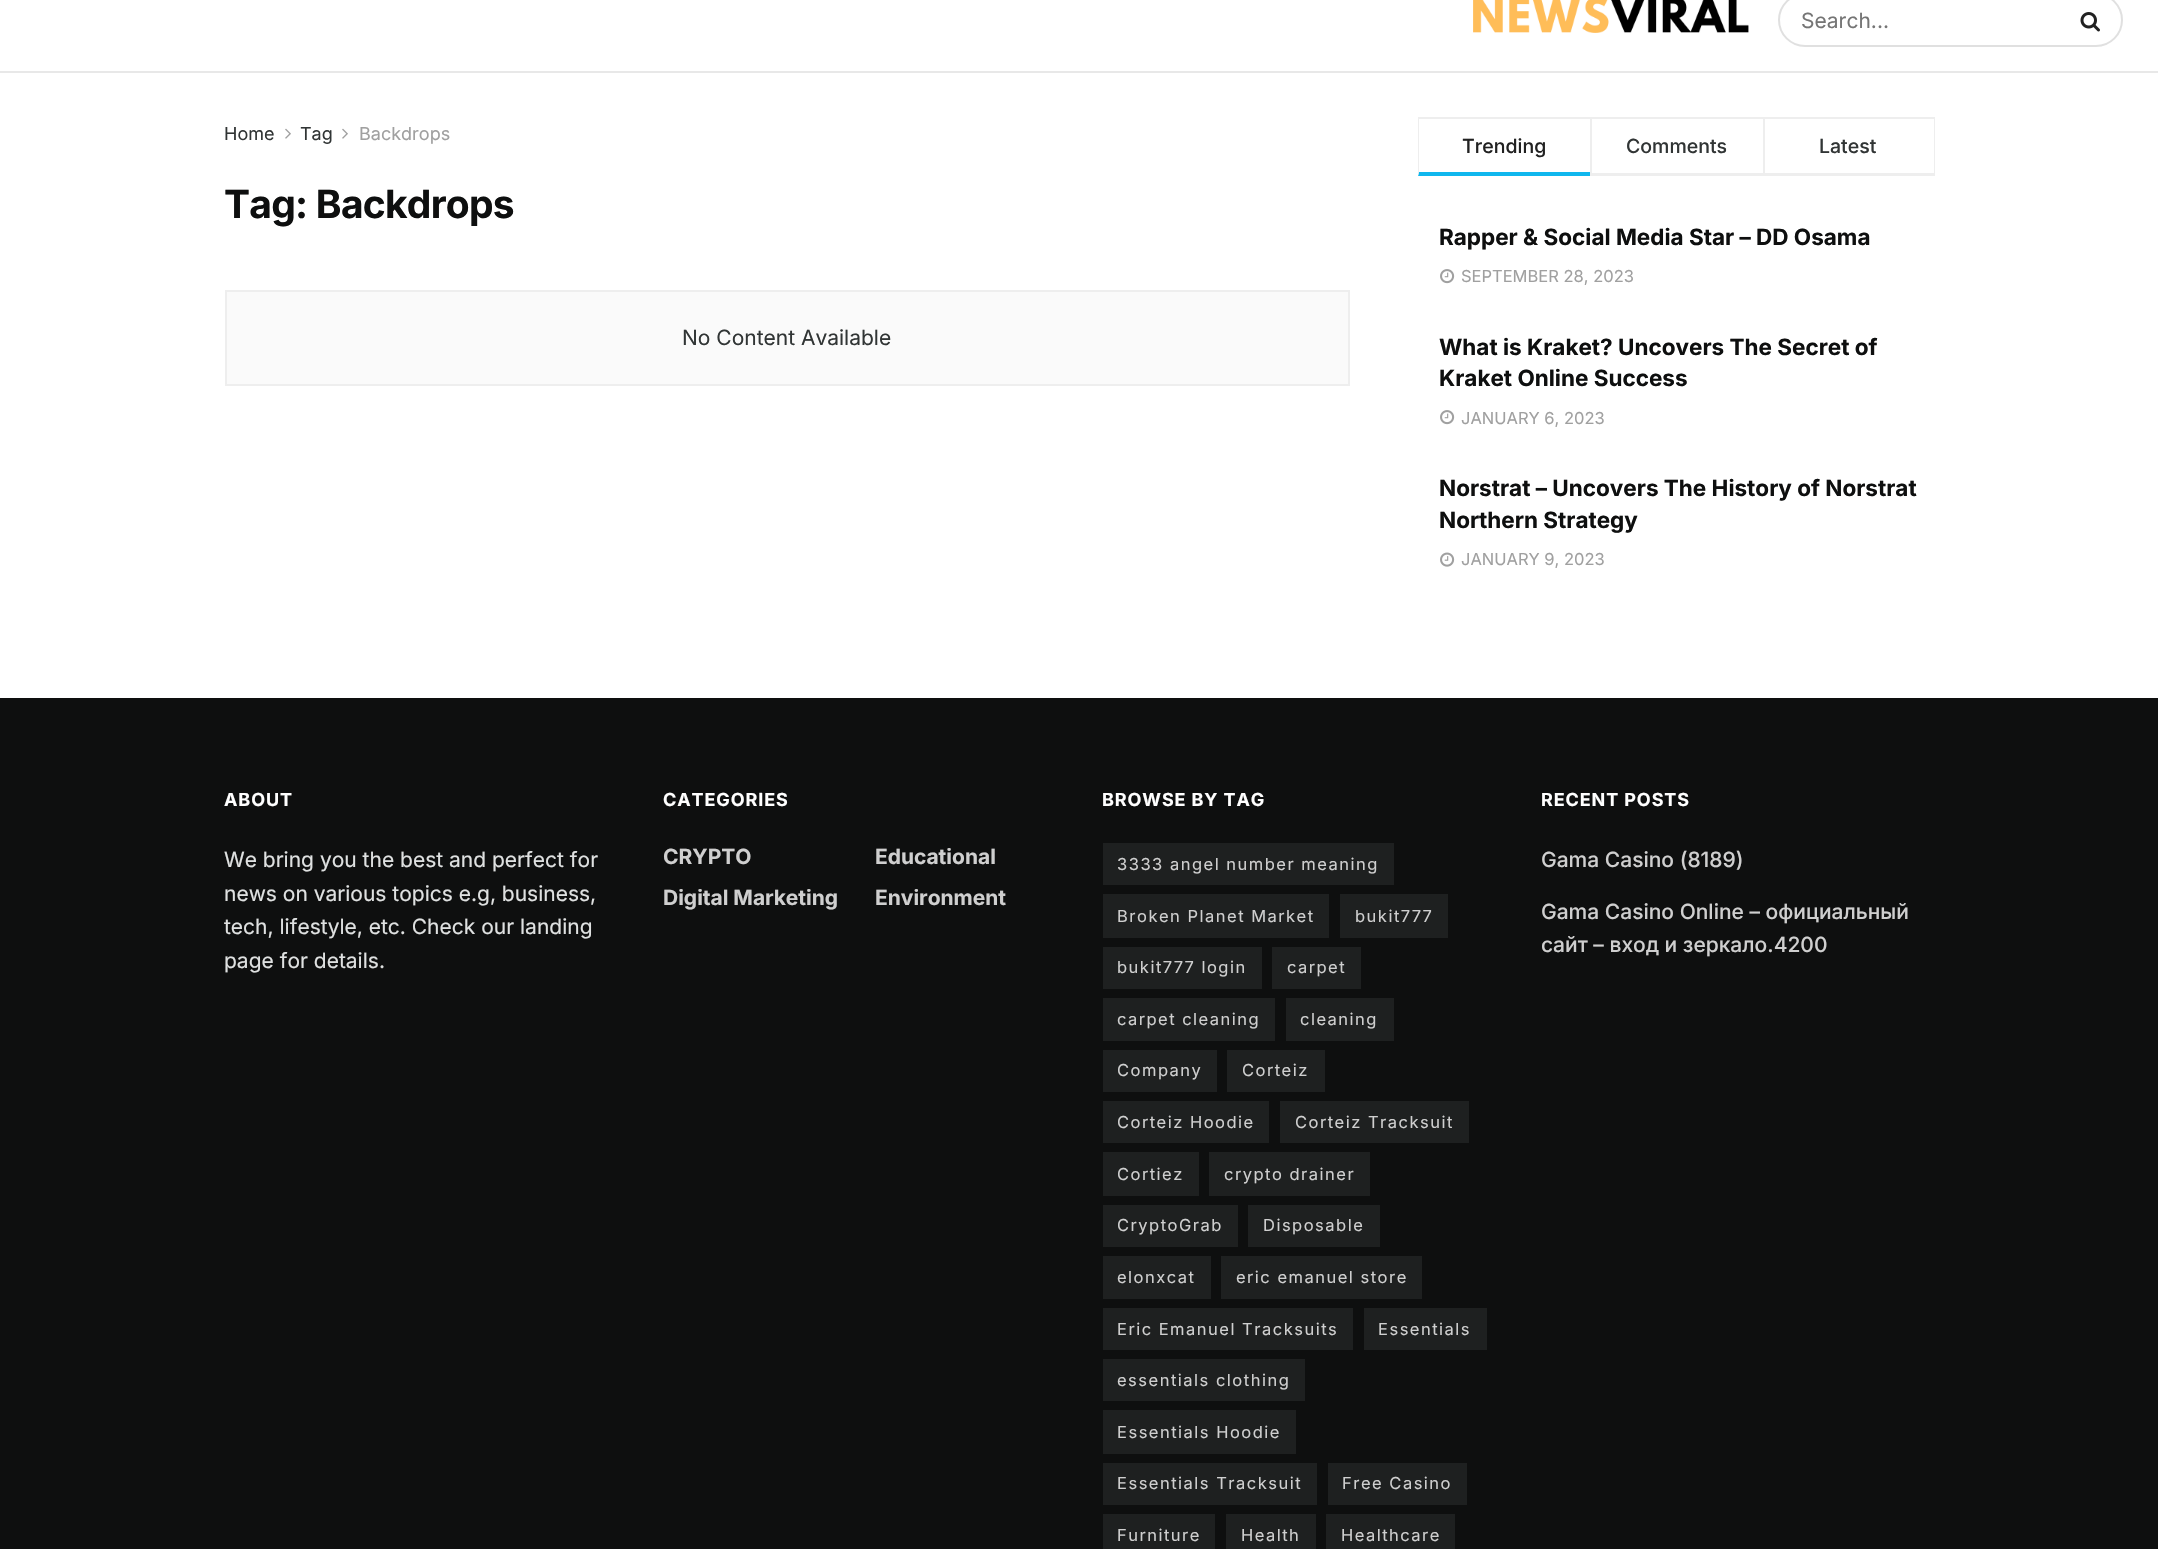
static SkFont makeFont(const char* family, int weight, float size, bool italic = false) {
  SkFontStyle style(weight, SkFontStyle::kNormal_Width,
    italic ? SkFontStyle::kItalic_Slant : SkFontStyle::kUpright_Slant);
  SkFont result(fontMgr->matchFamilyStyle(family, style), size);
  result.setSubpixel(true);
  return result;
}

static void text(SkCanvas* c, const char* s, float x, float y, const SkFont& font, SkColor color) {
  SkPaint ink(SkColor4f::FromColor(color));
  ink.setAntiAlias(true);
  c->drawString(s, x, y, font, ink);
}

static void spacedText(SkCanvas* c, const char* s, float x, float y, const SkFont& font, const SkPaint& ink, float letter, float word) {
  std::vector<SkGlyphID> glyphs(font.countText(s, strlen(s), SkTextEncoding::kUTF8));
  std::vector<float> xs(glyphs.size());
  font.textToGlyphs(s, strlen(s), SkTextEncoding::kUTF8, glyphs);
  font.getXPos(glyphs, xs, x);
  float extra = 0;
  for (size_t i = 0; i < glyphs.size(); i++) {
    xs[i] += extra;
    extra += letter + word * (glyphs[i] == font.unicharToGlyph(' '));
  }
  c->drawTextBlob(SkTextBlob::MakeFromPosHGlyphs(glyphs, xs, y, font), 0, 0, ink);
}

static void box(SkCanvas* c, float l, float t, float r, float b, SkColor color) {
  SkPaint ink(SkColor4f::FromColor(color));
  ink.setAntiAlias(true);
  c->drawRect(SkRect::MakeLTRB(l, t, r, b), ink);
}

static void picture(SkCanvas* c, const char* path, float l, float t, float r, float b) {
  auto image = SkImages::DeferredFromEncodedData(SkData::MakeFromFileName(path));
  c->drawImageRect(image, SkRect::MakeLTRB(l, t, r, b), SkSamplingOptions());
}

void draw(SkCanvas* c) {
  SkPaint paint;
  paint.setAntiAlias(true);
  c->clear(0xffffffff);
  box(c, 0, 71, 2158, 73, 0xffe8e8e8);
  picture(c, "img_01.png", 1473, 0, 1749, 33);
  paint.setStyle(SkPaint::kStroke_Style);
  paint.setStrokeWidth(2);
  paint.setColor(0xffe0e0e0);
  c->drawRoundRect(SkRect::MakeLTRB(1779, -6, 2122, 46), 26, 26, paint);
  SkFont face1 = makeFont("Inter", 400, 21);
  text(c, "Search...", 1801, 28, face1, 0xff757575);
  picture(c, "img_02.png", 2080, 12, 2100, 32);
  SkFont face2 = makeFont("Inter", 400, 18);
  text(c, "Home", 224, 140, face2, 0xff313535);
  picture(c, "img_03.png", 285, 128, 291, 139);
  text(c, "Tag", 300, 140, face2, 0xff313535);
  picture(c, "img_03.png", 342, 128, 348, 139);
  text(c, "Backdrops", 359, 140, face2, 0xffa0a0a0);
  SkFont face3 = makeFont("Inter", 700, 39);
  paint.setStyle(SkPaint::kFill_Style);
  paint.setColor(0xff0e0f0f);
  spacedText(c, "Tag: Backdrops", 224, 218, face3, paint, -0.75f, 0);
  paint.setColor(0xfffafafa);
  c->drawRect(SkRect::MakeLTRB(226, 291, 1349, 385), paint);
  paint.setStyle(SkPaint::kStroke_Style);
  paint.setColor(0xffeeeeee);
  c->drawRect(SkRect::MakeLTRB(226, 291, 1349, 385), paint);
  text(c, "No Content Available", 682, 345, face1, 0xff313535);
  box(c, 1418, 117, 1935, 119, 0xffeeeeee);
  paint.setStyle(SkPaint::kFill_Style);
  paint.setColor(0xff0fb7ee);
  c->drawPath(SkPathBuilder().moveTo(1590, 176).lineTo(1418, 176).lineTo(1419, 172).lineTo(1590, 172).close().detach(), paint);
  paint.setColor(0xffeeeeee);
  c->drawPath(SkPathBuilder().moveTo(1418, 176).lineTo(1418, 117).lineTo(1419, 118).lineTo(1419, 172).close().detach(), paint);
  SkFont face4 = makeFont("Inter", 500, 19.5f);
  text(c, "Trending", 1462, 153, face4, 0xff212121);
  box(c, 1590, 173, 1763, 176, 0xffeeeeee);
  box(c, 1590, 117, 1592, 176, 0xffeeeeee);
  text(c, "Comments", 1626, 153, face4, 0xff313535);
  box(c, 1934, 117, 1935, 176, 0xffeeeeee);
  box(c, 1763, 173, 1935, 176, 0xffeeeeee);
  box(c, 1763, 117, 1765, 176, 0xffeeeeee);
  text(c, "Latest", 1819, 153, face4, 0xff313535);
  SkFont face5 = makeFont("Inter", 700, 22.5f);
  text(c, "Rapper & Social Media Star – DD Osama", 1439, 245, face5, 0xff0e0f0f);
  picture(c, "img_04.png", 1440, 269, 1455, 284);
  SkFont face6 = makeFont("Inter", 400, 16.5f);
  text(c, "SEPTEMBER 28, 2023", 1461, 282, face6, 0xffa0a0a0);
  text(c, "What is Kraket? Uncovers The Secret of", 1439, 355, face5, 0xff0e0f0f);
  text(c, "Kraket Online Success", 1439, 386, face5, 0xff0e0f0f);
  picture(c, "img_04.png", 1440, 410, 1455, 425);
  text(c, "JANUARY 6, 2023", 1461, 424, face6, 0xffa0a0a0);
  text(c, "Norstrat – Uncovers The History of Norstrat", 1439, 496, face5, 0xff0e0f0f);
  text(c, "Northern Strategy", 1439, 528, face5, 0xff0e0f0f);
  picture(c, "img_05.png", 1440, 552, 1455, 567);
  text(c, "JANUARY 9, 2023", 1461, 565, face6, 0xffa0a0a0);
  box(c, 0, 698, 2158, 1549, 0xff0e0f0f);
  SkFont face7 = makeFont("Inter", 700, 18);
  paint.setColor(0xffffffff);
  spacedText(c, "ABOUT", 224, 806, face7, paint, 0.9f, 0);
  text(c, "We bring you the best and perfect for", 224, 867, face1, 0xffdfe1e1);
  text(c, "news on various topics e.g, business,", 224, 901, face1, 0xffdfe1e1);
  text(c, "tech, lifestyle, etc. Check our landing", 224, 934, face1, 0xffdfe1e1);
  text(c, "page for details.", 224, 968, face1, 0xffdfe1e1);
  spacedText(c, "CATEGORIES", 663, 806, face7, paint, 0.9f, 0);
  SkFont face8 = makeFont("Inter", 700, 21);
  text(c, "CRYPTO", 663, 864, face8, 0xffcfcfcf);
  text(c, "Educational", 875, 864, face8, 0xffcfcfcf);
  text(c, "Digital Marketing", 663, 905, face8, 0xffcfcfcf);
  text(c, "Environment", 875, 905, face8, 0xffcfcfcf);
  spacedText(c, "BROWSE BY TAG", 1102, 806, face7, paint, 0.9f, 0);
  box(c, 1103, 843, 1394, 885, 0xff1e2020);
  paint.setColor(0xffcfcfcf);
  spacedText(c, "3333 angel number meaning", 1117, 870, face6, paint, 1.5f, 0);
  box(c, 1103, 894, 1329, 938, 0xff1e2020);
  spacedText(c, "Broken Planet Market", 1117, 922, face6, paint, 1.5f, 0);
  box(c, 1340, 894, 1448, 938, 0xff1e2020);
  spacedText(c, "bukit777", 1355, 922, face6, paint, 1.5f, 0);
  box(c, 1103, 947, 1262, 989, 0xff1e2020);
  spacedText(c, "bukit777 login", 1117, 973, face6, paint, 1.5f, 0);
  box(c, 1272, 947, 1361, 989, 0xff1e2020);
  spacedText(c, "carpet", 1287, 973, face6, paint, 1.5f, 0);
  box(c, 1103, 998, 1275, 1041, 0xff1e2020);
  spacedText(c, "carpet cleaning", 1117, 1025, face6, paint, 1.5f, 0);
  box(c, 1286, 998, 1394, 1041, 0xff1e2020);
  spacedText(c, "cleaning", 1300, 1025, face6, paint, 1.5f, 0);
  box(c, 1103, 1050, 1217, 1092, 0xff1e2020);
  spacedText(c, "Company", 1117, 1076, face6, paint, 1.5f, 0);
  box(c, 1227, 1050, 1325, 1092, 0xff1e2020);
  spacedText(c, "Corteiz", 1242, 1076, face6, paint, 1.5f, 0);
  box(c, 1103, 1101, 1269, 1143, 0xff1e2020);
  spacedText(c, "Corteiz Hoodie", 1117, 1128, face6, paint, 1.5f, 0);
  box(c, 1280, 1101, 1469, 1143, 0xff1e2020);
  spacedText(c, "Corteiz Tracksuit", 1295, 1128, face6, paint, 1.5f, 0);
  box(c, 1103, 1152, 1199, 1196, 0xff1e2020);
  spacedText(c, "Cortiez", 1117, 1180, face6, paint, 1.5f, 0);
  box(c, 1209, 1152, 1370, 1196, 0xff1e2020);
  spacedText(c, "crypto drainer", 1224, 1180, face6, paint, 1.5f, 0);
  box(c, 1103, 1205, 1238, 1247, 0xff1e2020);
  spacedText(c, "CryptoGrab", 1117, 1231, face6, paint, 1.5f, 0);
  box(c, 1248, 1205, 1380, 1247, 0xff1e2020);
  spacedText(c, "Disposable", 1263, 1231, face6, paint, 1.5f, 0);
  box(c, 1103, 1256, 1211, 1299, 0xff1e2020);
  spacedText(c, "elonxcat", 1117, 1283, face6, paint, 1.5f, 0);
  box(c, 1221, 1256, 1422, 1299, 0xff1e2020);
  spacedText(c, "eric emanuel store", 1236, 1283, face6, paint, 1.5f, 0);
  box(c, 1103, 1308, 1353, 1350, 0xff1e2020);
  spacedText(c, "Eric Emanuel Tracksuits", 1117, 1335, face6, paint, 1.5f, 0);
  box(c, 1364, 1308, 1487, 1350, 0xff1e2020);
  spacedText(c, "Essentials", 1378, 1335, face6, paint, 1.5f, 0);
  box(c, 1103, 1359, 1305, 1401, 0xff1e2020);
  spacedText(c, "essentials clothing", 1117, 1386, face6, paint, 1.5f, 0);
  box(c, 1103, 1410, 1296, 1454, 0xff1e2020);
  spacedText(c, "Essentials Hoodie", 1117, 1438, face6, paint, 1.5f, 0);
  box(c, 1103, 1463, 1317, 1505, 0xff1e2020);
  spacedText(c, "Essentials Tracksuit", 1117, 1489, face6, paint, 1.5f, 0);
  box(c, 1328, 1463, 1467, 1505, 0xff1e2020);
  spacedText(c, "Free Casino", 1342, 1489, face6, paint, 1.5f, 0);
  box(c, 1103, 1514, 1215, 1549, 0xff1e2020);
  spacedText(c, "Furniture", 1117, 1541, face6, paint, 1.5f, 0);
  box(c, 1226, 1514, 1316, 1549, 0xff1e2020);
  spacedText(c, "Health", 1241, 1541, face6, paint, 1.5f, 0);
  box(c, 1326, 1514, 1455, 1549, 0xff1e2020);
  spacedText(c, "Healthcare", 1341, 1541, face6, paint, 1.5f, 0);
  paint.setColor(0xffffffff);
  spacedText(c, "RECENT POSTS", 1541, 806, face7, paint, 0.9f, 0);
  SkFont face9 = makeFont("Inter", 500, 21);
  text(c, "Gama Casino (8189)", 1541, 867, face9, 0xffcfcfcf);
  text(c, "Gama Casino Online – официальный", 1541, 919, face9, 0xffcfcfcf);
  text(c, "сайт – вход и зеркало.4200", 1541, 952, face9, 0xffcfcfcf);
}
